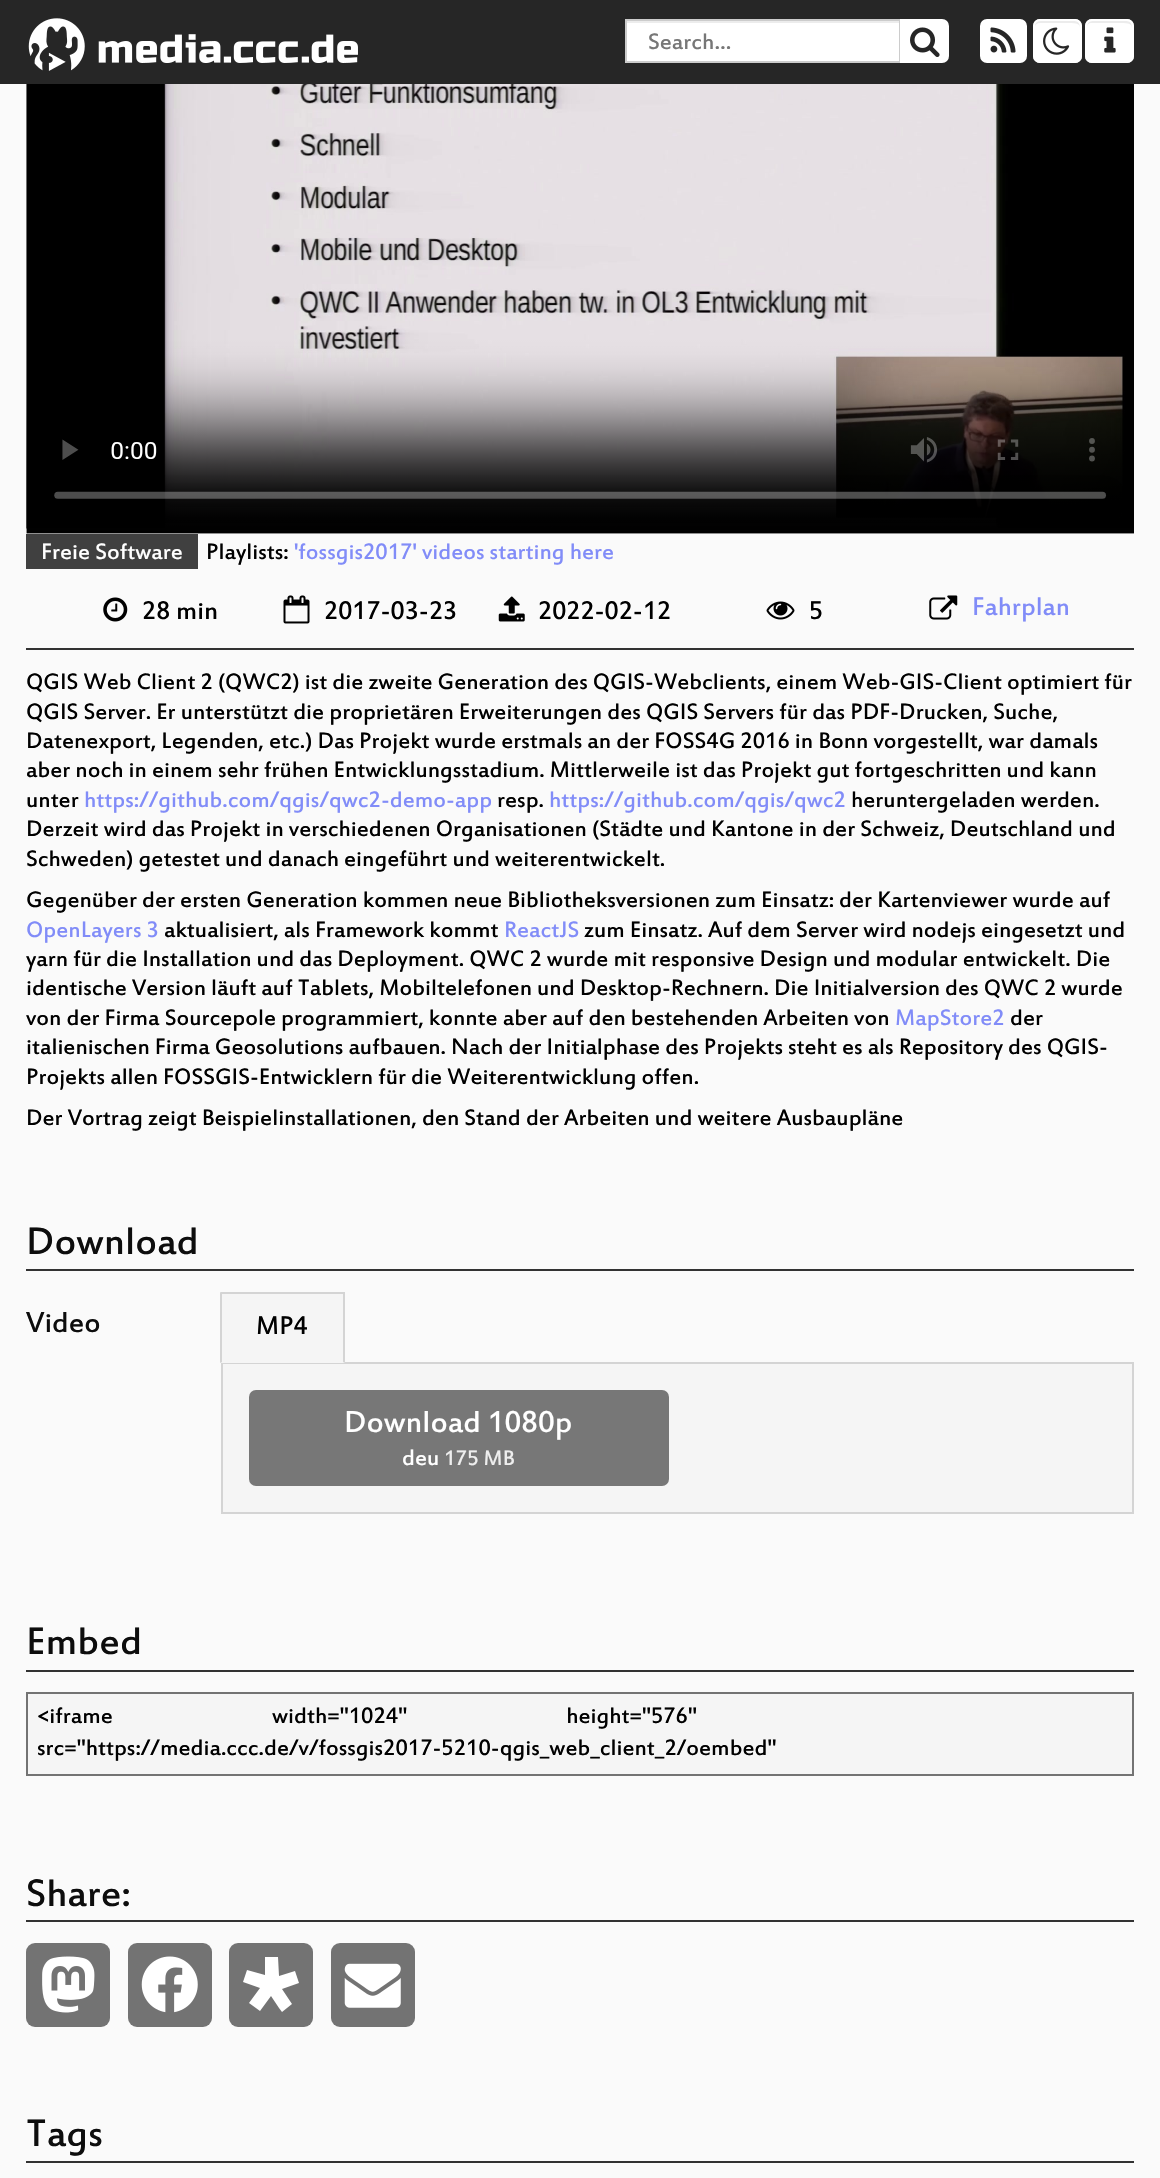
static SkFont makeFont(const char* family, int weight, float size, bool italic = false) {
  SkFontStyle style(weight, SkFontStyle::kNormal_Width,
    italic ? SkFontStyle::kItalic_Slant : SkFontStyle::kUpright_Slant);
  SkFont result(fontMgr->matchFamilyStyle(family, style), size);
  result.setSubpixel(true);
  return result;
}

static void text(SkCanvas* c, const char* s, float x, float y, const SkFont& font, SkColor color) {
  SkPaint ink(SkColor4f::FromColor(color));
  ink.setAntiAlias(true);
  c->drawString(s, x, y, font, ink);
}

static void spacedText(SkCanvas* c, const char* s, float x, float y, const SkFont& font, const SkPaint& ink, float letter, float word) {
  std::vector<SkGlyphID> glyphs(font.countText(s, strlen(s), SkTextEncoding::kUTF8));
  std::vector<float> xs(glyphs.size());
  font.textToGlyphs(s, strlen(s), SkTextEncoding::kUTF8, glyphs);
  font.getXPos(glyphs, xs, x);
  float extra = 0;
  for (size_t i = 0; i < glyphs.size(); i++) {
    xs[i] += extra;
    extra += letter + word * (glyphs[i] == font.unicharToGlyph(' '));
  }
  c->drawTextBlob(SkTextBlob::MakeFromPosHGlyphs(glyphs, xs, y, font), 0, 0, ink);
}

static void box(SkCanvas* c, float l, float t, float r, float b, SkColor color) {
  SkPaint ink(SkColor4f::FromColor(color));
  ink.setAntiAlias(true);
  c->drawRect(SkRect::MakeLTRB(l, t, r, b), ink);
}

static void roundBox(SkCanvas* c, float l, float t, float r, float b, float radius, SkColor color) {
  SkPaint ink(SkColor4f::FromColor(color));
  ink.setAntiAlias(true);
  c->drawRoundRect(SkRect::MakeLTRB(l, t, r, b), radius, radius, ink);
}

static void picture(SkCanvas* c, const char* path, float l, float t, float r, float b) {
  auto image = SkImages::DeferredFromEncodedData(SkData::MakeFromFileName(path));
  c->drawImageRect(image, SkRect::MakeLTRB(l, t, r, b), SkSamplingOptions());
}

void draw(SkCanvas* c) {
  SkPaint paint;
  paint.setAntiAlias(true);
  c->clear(0xfffafafa);
  box(c, 0, 0, 1160, 84, 0xff262626);
  picture(c, "img_01.png", 28, 18, 358, 71);
  box(c, 627, 23, 899, 61, 0xffffffff);
  box(c, 627, 21, 900, 23, 0xffececec);
  paint.setStyle(SkPaint::kStroke_Style);
  paint.setStrokeWidth(2);
  paint.setColor(0xffcccccc);
  c->drawRect(SkRect::MakeLTRB(626, 20, 900, 62), paint);
  SkFont face1 = makeFont("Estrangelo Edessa", 400, 24.5f);
  text(c, "Search…", 648, 49, face1, 0xff777777);
  paint.setStyle(SkPaint::kFill_Style);
  paint.setColor(0xffffffff);
  c->drawPath(SkPathBuilder().moveTo(901, 20).lineTo(942, 20).cubicTo(945.5f, 20, 948, 22.5f, 948, 26).lineTo(948, 56).cubicTo(948, 59.5f, 945.5f, 62, 942, 62).lineTo(901, 62).close().detach(), paint);
  paint.setStyle(SkPaint::kStroke_Style);
  c->drawPath(SkPathBuilder().moveTo(901, 20).lineTo(942, 20).cubicTo(945.5f, 20, 948, 22.5f, 948, 26).lineTo(948, 56).cubicTo(948, 59.5f, 945.5f, 62, 942, 62).lineTo(901, 62).close().detach(), paint);
  picture(c, "img_02.png", 910, 27, 940, 57);
  paint.setStyle(SkPaint::kFill_Style);
  c->drawRoundRect(SkRect::MakeLTRB(981, 20, 1026, 62), 6, 6, paint);
  paint.setStyle(SkPaint::kStroke_Style);
  c->drawRoundRect(SkRect::MakeLTRB(981, 20, 1026, 62), 6, 6, paint);
  picture(c, "img_03.png", 990, 27, 1016, 53);
  roundBox(c, 1033, 19, 1082, 63, 7, 0xffffffff);
  paint.setStyle(SkPaint::kFill_Style);
  paint.setColor(0xffececec);
  c->drawPath(SkPathBuilder(SkPathFillType::kEvenOdd).moveTo(1040, 23).lineTo(1069, 23).cubicTo(1077, 23, 1080, 24, 1080, 28).cubicTo(1080, 20, 1076, 21, 1069, 21).lineTo(1045, 21).cubicTo(1033, 21, 1034, 22, 1034, 33).cubicTo(1034, 29, 1034, 23, 1040, 23).close().moveTo(1034, 57).lineTo(1034, 53).close().detach(), paint);
  paint.setStyle(SkPaint::kStroke_Style);
  paint.setColor(0xffffffff);
  c->drawRoundRect(SkRect::MakeLTRB(1034, 20, 1081, 62), 6, 6, paint);
  picture(c, "img_04.png", 1043, 27, 1070, 55);
  roundBox(c, 1085, 19, 1134, 63, 7, 0xffffffff);
  paint.setStyle(SkPaint::kFill_Style);
  paint.setColor(0xffececec);
  c->drawPath(SkPathBuilder(SkPathFillType::kEvenOdd).moveTo(1092, 23).lineTo(1121, 23).cubicTo(1129, 23, 1132, 24, 1132, 28).cubicTo(1132, 20, 1128, 21, 1121, 21).lineTo(1098, 21).cubicTo(1091, 21, 1087, 20, 1087, 28).cubicTo(1087, 25, 1088, 23, 1092, 23).close().moveTo(1087, 57).lineTo(1087, 53).close().detach(), paint);
  paint.setStyle(SkPaint::kStroke_Style);
  paint.setColor(0xffffffff);
  c->drawRoundRect(SkRect::MakeLTRB(1086, 20, 1133, 62), 6, 6, paint);
  picture(c, "img_05.png", 1104, 27, 1116, 53);
  picture(c, "img_06.png", 26, 84, 1134, 534);
  box(c, 26, 534, 198, 569, 0xff404040);
  text(c, "Freie Software", 41, 559, face1, 0xffffffff);
  text(c, "Playlists:", 206, 559, face1, 0xff000000);
  text(c, "'fossgis2017' videos starting here", 294, 559, face1, 0xff818cf8);
  box(c, 26, 648, 1134, 650, 0xff323232);
  picture(c, "img_07.png", 103, 597, 128, 622);
  SkFont face2 = makeFont("Estrangelo Edessa", 400, 28);
  text(c, "28 min", 142, 619, face2, 0xff000000);
  picture(c, "img_08.png", 283, 595, 310, 624);
  text(c, "2017-03-23", 324, 619, face2, 0xff000000);
  picture(c, "img_09.png", 498, 596, 525, 622);
  text(c, "2022-02-12", 538, 619, face2, 0xff000000);
  picture(c, "img_10.png", 766, 601, 795, 620);
  text(c, "5", 809, 619, face2, 0xff000000);
  picture(c, "img_11.png", 929, 595, 958, 620);
  text(c, "Fahrplan", 972, 615, face2, 0xff818cf8);
  text(c, "QGIS Web Client 2 (QWC2) ist die zweite Generation des QGIS-Webclients, einem Web-GIS-Client optimiert für", 26, 689, face1, 0xff000000);
  text(c, "QGIS Server. Er unterstützt die proprietären Erweiterungen des QGIS Servers für das PDF-Drucken, Suche,", 26, 719, face1, 0xff000000);
  text(c, "Datenexport, Legenden, etc.) Das Projekt wurde erstmals an der FOSS4G 2016 in Bonn vorgestellt, war damals", 26, 748, face1, 0xff000000);
  text(c, "aber noch in einem sehr frühen Entwicklungsstadium. Mittlerweile ist das Projekt gut fortgeschritten und kann", 26, 777, face1, 0xff000000);
  text(c, "unter", 26, 807, face1, 0xff000000);
  text(c, "https://github.com/qgis/qwc2-demo-app", 84, 807, face1, 0xff818cf8);
  text(c, "resp.", 497, 807, face1, 0xff000000);
  text(c, "https://github.com/qgis/qwc2", 549, 807, face1, 0xff818cf8);
  text(c, "heruntergeladen werden.", 851, 807, face1, 0xff000000);
  text(c, "Derzeit wird das Projekt in verschiedenen Organisationen (Städte und Kantone in der Schweiz, Deutschland und", 26, 836, face1, 0xff000000);
  text(c, "Schweden) getestet und danach eingeführt und weiterentwickelt.", 26, 866, face1, 0xff000000);
  text(c, "Gegenüber der ersten Generation kommen neue Bibliotheksversionen zum Einsatz: der Kartenviewer wurde auf", 26, 907, face1, 0xff000000);
  text(c, "OpenLayers 3", 26, 937, face1, 0xff818cf8);
  text(c, "aktualisiert, als Framework kommt", 164, 937, face1, 0xff000000);
  text(c, "ReactJS", 504, 937, face1, 0xff818cf8);
  text(c, "zum Einsatz. Auf dem Server wird nodejs eingesetzt und", 584, 937, face1, 0xff000000);
  text(c, "yarn für die Installation und das Deployment. QWC 2 wurde mit responsive Design und modular entwickelt. Die", 26, 966, face1, 0xff000000);
  text(c, "identische Version läuft auf Tablets, Mobiltelefonen und Desktop-Rechnern. Die Initialversion des QWC 2 wurde", 26, 995, face1, 0xff000000);
  text(c, "von der Firma Sourcepole programmiert, konnte aber auf den bestehenden Arbeiten von", 26, 1025, face1, 0xff000000);
  text(c, "MapStore2", 895, 1025, face1, 0xff818cf8);
  text(c, "der", 1010, 1025, face1, 0xff000000);
  text(c, "italienischen Firma Geosolutions aufbauen. Nach der Initialphase des Projekts steht es als Repository des QGIS-", 26, 1054, face1, 0xff000000);
  text(c, "Projekts allen FOSSGIS-Entwicklern für die Weiterentwicklung offen.", 26, 1084, face1, 0xff000000);
  text(c, "Der Vortrag zeigt Beispielinstallationen, den Stand der Arbeiten und weitere Ausbaupläne", 26, 1125, face1, 0xff000000);
  box(c, 26, 1269, 1134, 1271, 0xff323232);
  SkFont face3 = makeFont("Estrangelo Edessa", 400, 42);
  text(c, "Download", 26, 1254, face3, 0xff0d0d0d);
  SkFont face4 = makeFont("Estrangelo Edessa", 400, 31.5f);
  text(c, "Video", 26, 1332, face4, 0xff0d0d0d);
  paint.setStyle(SkPaint::kFill_Style);
  paint.setColor(0xfff5f5f5);
  c->drawRect(SkRect::MakeLTRB(222, 1363, 1133, 1513), paint);
  paint.setStyle(SkPaint::kStroke_Style);
  paint.setColor(0xffd4d4d4);
  c->drawRect(SkRect::MakeLTRB(222, 1363, 1133, 1513), paint);
  box(c, 221, 1294, 345, 1363, 0xfff5f5f5);
  box(c, 221, 1292, 345, 1294, 0xffd4d4d4);
  paint.setStyle(SkPaint::kFill_Style);
  c->drawPath(SkPathBuilder().moveTo(345, 1292).lineTo(345, 1363).lineTo(343, 1362).lineTo(343, 1293).close().detach(), paint);
  c->drawPath(SkPathBuilder().moveTo(220, 1363).lineTo(220, 1292).lineTo(222, 1293).lineTo(222, 1362).close().detach(), paint);
  text(c, "MP4", 256, 1334, face2, 0xff000000);
  roundBox(c, 249, 1390, 669, 1486, 7, 0xff777777);
  SkFont face5 = makeFont("Estrangelo Edessa", 400, 33.25f);
  text(c, "Download 1080p", 344, 1432, face5, 0xffffffff);
  text(c, "deu", 402, 1465, face1, 0xffffffff);
  SkFont face6 = makeFont("Estrangelo Edessa", 400, 23);
  text(c, "175 MB", 444, 1465, face6, 0xffeeeeee);
  box(c, 26, 1670, 1134, 1672, 0xff323232);
  text(c, "Embed", 26, 1654, face3, 0xff0d0d0d);
  paint.setColor(0xfff5f5f5);
  c->drawRect(SkRect::MakeLTRB(27, 1693, 1133, 1775), paint);
  paint.setStyle(SkPaint::kStroke_Style);
  paint.setColor(0xff737373);
  c->drawRect(SkRect::MakeLTRB(27, 1693, 1133, 1775), paint);
  paint.setStyle(SkPaint::kFill_Style);
  paint.setColor(0xff000000);
  spacedText(c, "<iframe width=\"1024\" height=\"576\"", 37, 1723, face1, paint, 0, 154);
  text(c, "src=\"https://media.ccc.de/v/fossgis2017-5210-qgis_web_client_2/oembed\"", 37, 1755, face1, 0xff000000);
  box(c, 26, 1920, 1134, 1922, 0xff323232);
  text(c, "Share:", 26, 1906, face3, 0xff0d0d0d);
  roundBox(c, 26, 1943, 110, 2027, 9, 0xff737373);
  picture(c, "img_12.png", 42, 1956, 95, 2013);
  roundBox(c, 128, 1943, 212, 2027, 9, 0xff737373);
  picture(c, "img_13.png", 141, 1956, 198, 2013);
  roundBox(c, 229, 1943, 313, 2027, 9, 0xff737373);
  paint.setColor(0xffffffff);
  c->drawPath(SkPathBuilder().moveTo(279, 2008).lineTo(271, 1996).lineTo(260, 2011).lineTo(249, 2003).lineTo(260, 1988).lineTo(243, 1982).lineTo(247, 1970).lineTo(265, 1975).lineTo(265, 1957).lineTo(278, 1957).lineTo(279, 1976).lineTo(295, 1971).lineTo(299, 1983).lineTo(282, 1989).lineTo(292, 2004).lineTo(282, 2012).close().detach(), paint);
  roundBox(c, 331, 1943, 415, 2027, 9, 0xff737373);
  picture(c, "img_14.png", 344, 1963, 401, 2008);
  box(c, 26, 2161, 1134, 2163, 0xff323232);
  text(c, "Tags", 26, 2146, face3, 0xff0d0d0d);
}
